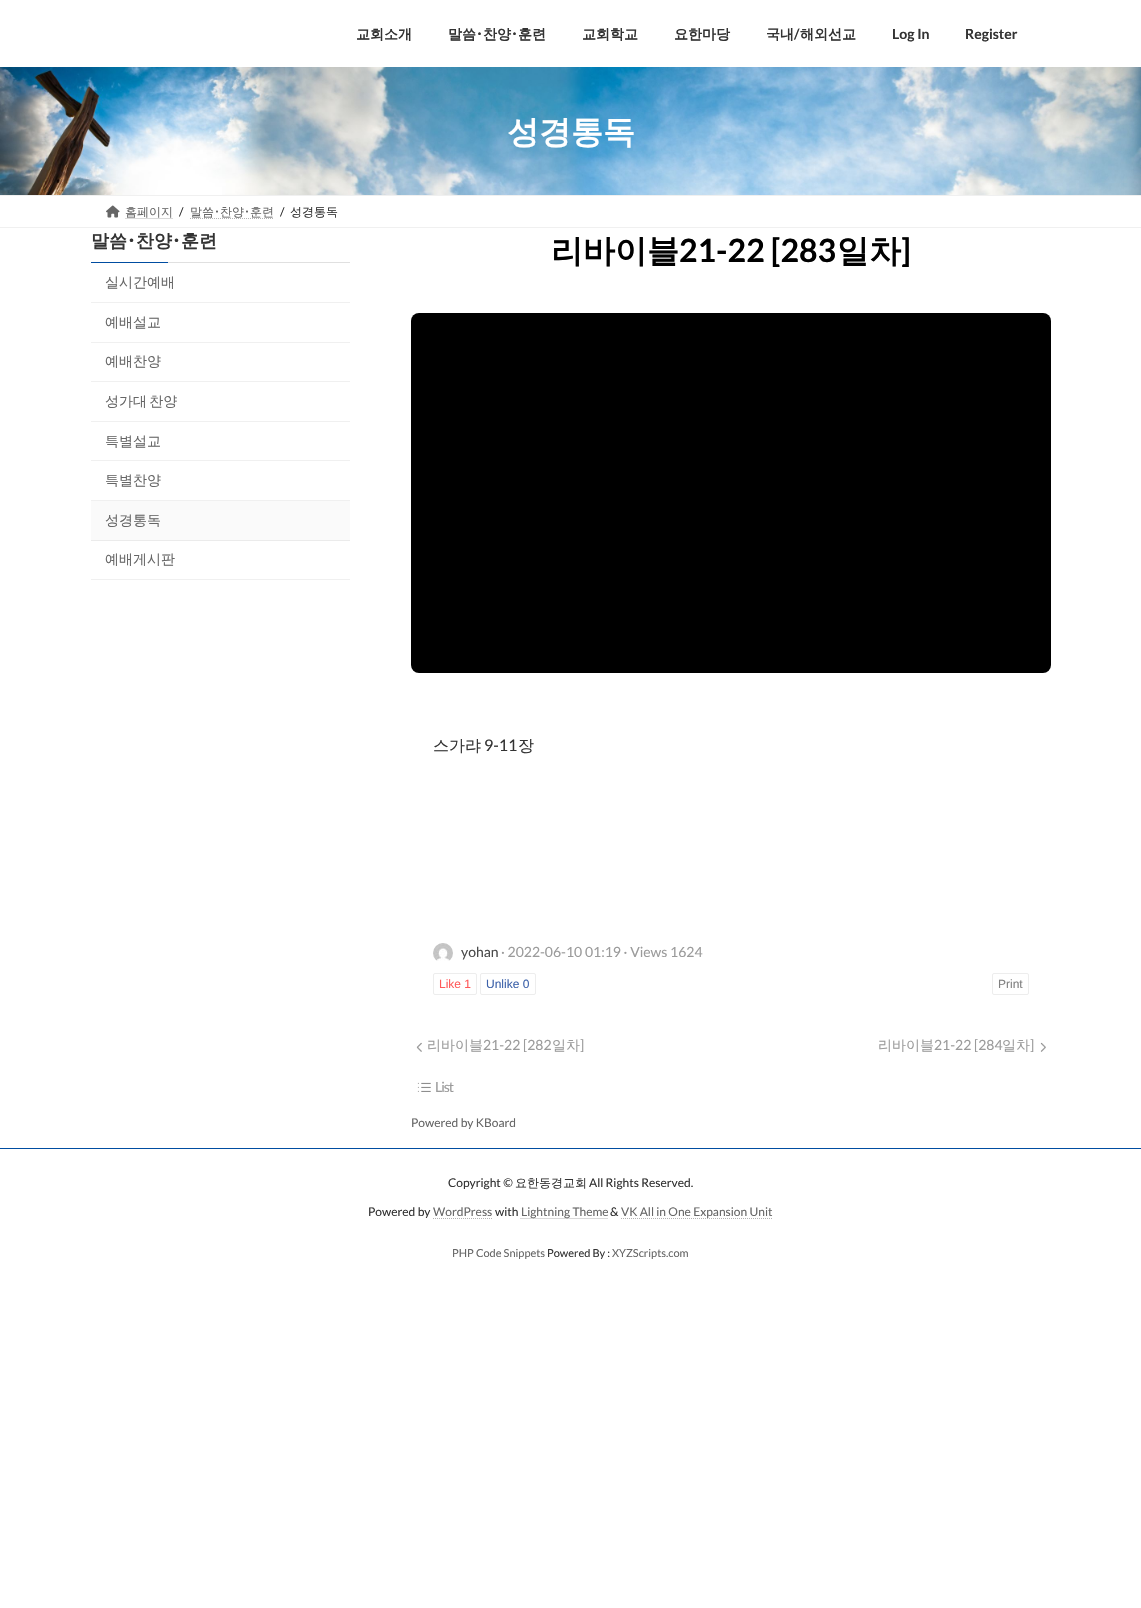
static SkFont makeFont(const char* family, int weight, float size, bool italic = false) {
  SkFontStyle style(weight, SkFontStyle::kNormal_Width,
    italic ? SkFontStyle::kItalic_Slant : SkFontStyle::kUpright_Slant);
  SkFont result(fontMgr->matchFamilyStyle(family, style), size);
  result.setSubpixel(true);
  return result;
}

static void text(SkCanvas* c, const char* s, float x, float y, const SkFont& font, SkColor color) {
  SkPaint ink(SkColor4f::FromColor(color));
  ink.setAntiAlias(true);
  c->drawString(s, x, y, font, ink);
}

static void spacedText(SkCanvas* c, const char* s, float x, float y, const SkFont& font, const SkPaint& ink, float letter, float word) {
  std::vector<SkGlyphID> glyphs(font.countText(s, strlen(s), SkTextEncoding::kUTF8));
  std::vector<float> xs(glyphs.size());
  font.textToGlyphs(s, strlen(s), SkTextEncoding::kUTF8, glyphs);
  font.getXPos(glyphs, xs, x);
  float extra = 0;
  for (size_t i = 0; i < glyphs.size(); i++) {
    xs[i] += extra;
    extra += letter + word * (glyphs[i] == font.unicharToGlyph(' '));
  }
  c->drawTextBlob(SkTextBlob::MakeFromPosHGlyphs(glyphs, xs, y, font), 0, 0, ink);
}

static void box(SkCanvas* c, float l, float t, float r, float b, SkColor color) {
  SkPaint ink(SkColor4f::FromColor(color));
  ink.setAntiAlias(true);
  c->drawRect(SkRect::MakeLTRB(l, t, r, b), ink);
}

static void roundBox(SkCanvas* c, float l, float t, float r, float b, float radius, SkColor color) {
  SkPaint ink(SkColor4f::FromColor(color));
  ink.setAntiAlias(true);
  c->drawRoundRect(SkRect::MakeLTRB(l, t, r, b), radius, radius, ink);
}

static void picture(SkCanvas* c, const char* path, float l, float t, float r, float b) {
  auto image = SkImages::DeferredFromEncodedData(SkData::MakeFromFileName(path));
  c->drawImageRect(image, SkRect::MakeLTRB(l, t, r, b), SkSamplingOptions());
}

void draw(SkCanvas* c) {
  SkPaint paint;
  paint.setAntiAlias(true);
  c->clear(0xffffffff);
  SkFont face1 = makeFont("WenQuanYi Zen Hei", 700, 14);
  text(c, "교회소개", 356, 39, face1, 0xff333333);
  text(c, "말씀", 448, 39, face1, 0xff333333);
  SkFont face2 = makeFont("Noto Sans JP", 700, 14);
  text(c, "･", 476, 39, face2, 0xff333333);
  text(c, "찬양", 483, 39, face1, 0xff333333);
  text(c, "･", 511, 39, face2, 0xff333333);
  text(c, "훈련", 518, 39, face1, 0xff333333);
  text(c, "교회학교", 582, 39, face1, 0xff333333);
  text(c, "요한마당", 674, 39, face1, 0xff333333);
  text(c, "국내", 766, 39, face1, 0xff333333);
  SkFont face3 = makeFont("Lato", 700, 14);
  text(c, "/", 794, 39, face3, 0xff333333);
  text(c, "해외선교", 800, 39, face1, 0xff333333);
  text(c, "Log In", 892, 39, face3, 0xff333333);
  text(c, "Register", 965, 39, face3, 0xff333333);
  picture(c, "img_01.png", 0, 67, 1141, 195);
  SkFont face4 = makeFont("WenQuanYi Zen Hei", 700, 32);
  text(c, "성경통독", 507, 143, face4, 0xffffffff);
  box(c, 0, 195, 1141, 196, 0xfff0f0f0);
  box(c, 0, 227, 1141, 228, 0xfff0f0f0);
  picture(c, "img_02.png", 106, 205, 120, 218);
  SkFont face5 = makeFont("WenQuanYi Zen Hei", 500, 12);
  text(c, "홈페이지", 125, 216, face5, 0xff666666);
  paint.setStyle(SkPaint::kStroke_Style);
  paint.setStrokeWidth(1);
  paint.setColor(0xffb3b3b3);
  paint.setPathEffect(SkDashPathEffect::Make({{1, 1}}, 0));
  c->drawPath(SkPathBuilder().moveTo(125.5f, 218.5f).lineTo(173.5f, 218.5f).detach(), paint);
  paint.setPathEffect(nullptr);
  SkFont face6 = makeFont("Lato", 400, 12);
  text(c, "/", 179, 216, face6, 0xff333333);
  text(c, "말씀", 190, 216, face5, 0xff666666);
  paint.setPathEffect(SkDashPathEffect::Make({{1, 1}}, 0));
  c->drawPath(SkPathBuilder().moveTo(190, 218.5f).lineTo(274, 218.5f).detach(), paint);
  paint.setPathEffect(nullptr);
  SkFont face7 = makeFont("Noto Sans JP", 400, 12);
  text(c, "･", 214, 216, face7, 0xff666666);
  text(c, "찬양", 220, 216, face5, 0xff666666);
  text(c, "･", 244, 216, face7, 0xff666666);
  text(c, "훈련", 250, 216, face5, 0xff666666);
  text(c, "/", 280, 216, face6, 0xff333333);
  text(c, "성경통독", 290, 216, face5, 0xff333333);
  box(c, 168, 262, 350, 263, 0xffe0e0e0);
  SkFont face8 = makeFont("WenQuanYi Zen Hei", 700, 18);
  text(c, "말씀", 91, 247, face8, 0xff333333);
  SkFont face9 = makeFont("Noto Sans JP", 700, 18);
  text(c, "･", 127, 247, face9, 0xff333333);
  text(c, "찬양", 136, 247, face8, 0xff333333);
  text(c, "･", 172, 247, face9, 0xff333333);
  text(c, "훈련", 181, 247, face8, 0xff333333);
  box(c, 91, 262, 168, 263, 0xff004da1);
  box(c, 91, 302, 350, 303, 0xfff0f0f0);
  SkFont face10 = makeFont("WenQuanYi Zen Hei", 500, 14);
  text(c, "실시간예배", 105, 287, face10, 0xff666666);
  box(c, 91, 342, 350, 343, 0xfff0f0f0);
  text(c, "예배설교", 105, 327, face10, 0xff666666);
  box(c, 91, 381, 350, 382, 0xfff0f0f0);
  text(c, "예배찬양", 105, 366, face10, 0xff666666);
  box(c, 91, 421, 350, 422, 0xfff0f0f0);
  paint.setStyle(SkPaint::kFill_Style);
  paint.setColor(0xff666666);
  spacedText(c, "성가대 찬양", 105, 406, face10, paint, 0, -2);
  box(c, 91, 460, 350, 461, 0xfff0f0f0);
  text(c, "특별설교", 105, 446, face10, 0xff666666);
  box(c, 91, 500, 350, 501, 0xfff0f0f0);
  text(c, "특별찬양", 105, 485, face10, 0xff666666);
  box(c, 91, 501, 350, 540, 0xfffafafa);
  box(c, 91, 540, 350, 541, 0xffebebeb);
  text(c, "성경통독", 105, 525, face10, 0xff666666);
  box(c, 91, 579, 350, 580, 0xfff0f0f0);
  text(c, "예배게시판", 105, 564, face10, 0xff666666);
  text(c, "리바이블", 551, 262, face4, 0xff000000);
  SkFont face11 = makeFont("Lato", 700, 32);
  text(c, "21-22 [283", 679, 262, face11, 0xff000000);
  text(c, "일차", 837, 262, face4, 0xff000000);
  text(c, "]", 901, 262, face11, 0xff000000);
  roundBox(c, 411, 313, 1051, 673, 8, 0xff000000);
  SkFont face12 = makeFont("WenQuanYi Zen Hei", 500, 16);
  text(c, "스가랴", 433, 751, face12, 0xff333333);
  SkFont face13 = makeFont("Lato", 400, 16);
  text(c, "9-11", 484, 751, face13, 0xff333333);
  text(c, "장", 518, 751, face12, 0xff333333);
  picture(c, "img_03.png", 433, 943, 453, 961);
  SkFont face14 = makeFont("Lato", 400, 14);
  text(c, "yohan", 461, 957, face14, 0xff4a4a4a);
  text(c, "· 2022-06-10 01:19 · Views 1624", 501, 957, face14, 0xff9b9b9b);
  paint.setStyle(SkPaint::kStroke_Style);
  paint.setColor(0xffededed);
  c->drawRoundRect(SkRect::MakeLTRB(433.5f, 973.5f, 476.5f, 994.5f), 1.5f, 1.5f, paint);
  SkFont face15 = makeFont("Liberation Sans", 400, 12);
  text(c, "Like 1", 439, 988, face15, 0xffff5959);
  c->drawRoundRect(SkRect::MakeLTRB(480.5f, 973.5f, 535.5f, 994.5f), 1.5f, 1.5f, paint);
  text(c, "Unlike 0", 486, 988, face15, 0xff3d62aa);
  c->drawRoundRect(SkRect::MakeLTRB(992.5f, 973.5f, 1028.5f, 994.5f), 1.5f, 1.5f, paint);
  text(c, "Print", 998, 988, face15, 0xff808080);
  picture(c, "img_04.png", 416, 1042, 422, 1052);
  text(c, "리바이블", 427, 1050, face10, 0xff9b9b9b);
  text(c, "21-22 [282", 483, 1050, face14, 0xff9b9b9b);
  text(c, "일차", 552, 1050, face10, 0xff9b9b9b);
  text(c, "]", 580, 1050, face14, 0xff9b9b9b);
  text(c, "리바이블", 878, 1050, face10, 0xff9b9b9b);
  text(c, "21-22 [284", 934, 1050, face14, 0xff9b9b9b);
  text(c, "일차", 1002, 1050, face10, 0xff9b9b9b);
  text(c, "]", 1030, 1050, face14, 0xff9b9b9b);
  picture(c, "img_05.png", 1040, 1042, 1046, 1052);
  picture(c, "img_06.png", 417, 1082, 431, 1092);
  paint.setStyle(SkPaint::kFill_Style);
  paint.setColor(0xff9b9b9b);
  spacedText(c, "List", 435, 1092, face14, paint, -1, 0);
  text(c, "Powered by KBoard", 411, 1127, face6, 0xff666666);
  box(c, 0, 1148, 1141, 1149, 0xff004da1);
  text(c, "Copyright ©", 448, 1187, face6, 0xff333333);
  text(c, "요한동경교회", 515, 1187, face5, 0xff333333);
  text(c, "All Rights Reserved.", 589, 1187, face6, 0xff333333);
  text(c, "Powered by", 368, 1216, face6, 0xff333333);
  text(c, "WordPress", 433, 1216, face6, 0xff666666);
  paint.setStyle(SkPaint::kStroke_Style);
  paint.setColor(0xffb3b3b3);
  paint.setPathEffect(SkDashPathEffect::Make({{1, 1}}, 0));
  c->drawPath(SkPathBuilder().moveTo(433, 1218.5f).lineTo(492.5f, 1218.5f).detach(), paint);
  paint.setPathEffect(nullptr);
  text(c, "with", 495, 1216, face6, 0xff333333);
  paint.setPathEffect(SkDashPathEffect::Make({{1, 1}}, 0));
  c->drawPath(SkPathBuilder().moveTo(520.5f, 1218.5f).lineTo(608, 1218.5f).detach(), paint);
  paint.setPathEffect(nullptr);
  text(c, "Lightning Theme", 521, 1216, face6, 0xff666666);
  text(c, "&", 610, 1216, face6, 0xff333333);
  paint.setPathEffect(SkDashPathEffect::Make({{1, 1}}, 0));
  c->drawPath(SkPathBuilder().moveTo(621, 1218.5f).lineTo(772.5f, 1218.5f).detach(), paint);
  paint.setPathEffect(nullptr);
  text(c, "VK All in One Expansion Unit", 621, 1216, face6, 0xff666666);
  SkFont face16 = makeFont("Lato", 400, 11);
  text(c, "PHP Code Snippets", 452, 1257, face16, 0xff666666);
  text(c, "Powered By :", 547, 1257, face16, 0xff333333);
  text(c, "XYZScripts.com", 612, 1257, face16, 0xff666666);
}
